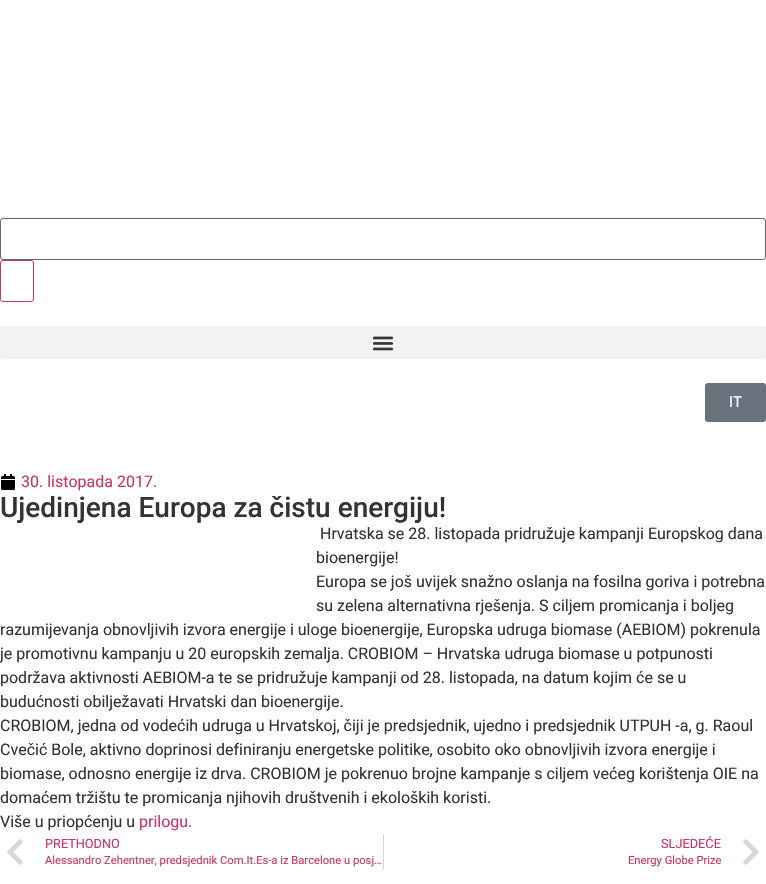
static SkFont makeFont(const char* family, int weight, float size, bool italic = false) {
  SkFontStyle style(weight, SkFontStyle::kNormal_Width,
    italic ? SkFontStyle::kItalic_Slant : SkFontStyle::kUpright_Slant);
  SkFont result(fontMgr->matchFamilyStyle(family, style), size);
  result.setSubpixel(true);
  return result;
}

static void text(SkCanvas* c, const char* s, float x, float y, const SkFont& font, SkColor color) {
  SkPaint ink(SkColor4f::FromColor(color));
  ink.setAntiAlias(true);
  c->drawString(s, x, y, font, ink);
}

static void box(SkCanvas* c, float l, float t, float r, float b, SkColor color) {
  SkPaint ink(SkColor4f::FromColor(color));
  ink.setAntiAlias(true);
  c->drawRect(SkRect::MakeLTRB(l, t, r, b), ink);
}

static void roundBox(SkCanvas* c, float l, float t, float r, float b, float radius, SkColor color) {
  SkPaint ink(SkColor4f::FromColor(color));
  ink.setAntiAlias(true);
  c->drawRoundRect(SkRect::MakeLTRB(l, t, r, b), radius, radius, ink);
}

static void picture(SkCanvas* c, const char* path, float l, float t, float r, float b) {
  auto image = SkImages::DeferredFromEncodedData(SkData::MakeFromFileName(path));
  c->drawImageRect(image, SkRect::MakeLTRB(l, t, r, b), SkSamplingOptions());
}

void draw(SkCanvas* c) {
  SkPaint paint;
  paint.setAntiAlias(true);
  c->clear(0xffffffff);
  paint.setStyle(SkPaint::kStroke_Style);
  paint.setStrokeWidth(1);
  paint.setColor(0xff666666);
  c->drawRoundRect(SkRect::MakeLTRB(0.5f, 218.5f, 765.5f, 259.5f), 2.5f, 2.5f, paint);
  paint.setColor(0xffcc3366);
  c->drawRoundRect(SkRect::MakeLTRB(0.5f, 260.5f, 33.5f, 301.5f), 2.5f, 2.5f, paint);
  roundBox(c, 0, 326, 766, 359, 3, 0xfff2f2f2);
  picture(c, "img_01.png", 372, 336, 394, 351);
  roundBox(c, 705, 383, 766, 422, 3, 0xff69727d);
  SkFont face1 = makeFont("Roboto", 400, 15);
  text(c, "IT", 729, 407, face1, 0xffffffff);
  picture(c, "img_02.png", 1, 474, 15, 490);
  SkFont face2 = makeFont("Roboto", 400, 16);
  text(c, "30. listopada 2017.", 21, 487, face2, 0xffcc3366);
  SkFont face3 = makeFont("Roboto", 500, 28);
  text(c, "Ujedinjena Europa za čistu energiju!", 0, 517, face3, 0xff333333);
  text(c, "Hrvatska se 28. listopada pridružuje kampanji Europskog dana", 320, 539, face2, 0xff333333);
  text(c, "bioenergije!", 316, 563, face2, 0xff333333);
  text(c, "Europa se još uvijek snažno oslanja na fosilna goriva i potrebna", 316, 587, face2, 0xff333333);
  text(c, "su zelena alternativna rješenja. S ciljem promicanja i boljeg", 316, 611, face2, 0xff333333);
  text(c, "razumijevanja obnovljivih izvora energije i uloge bioenergije, Europska udruga biomase (AEBIOM) pokrenula", 0, 635, face2, 0xff333333);
  text(c, "je promotivnu kampanju u 20 europskih zemalja. CROBIOM – Hrvatska udruga biomase u potpunosti", 0, 659, face2, 0xff333333);
  text(c, "podržava aktivnosti AEBIOM-a te se pridružuje kampanji od 28. listopada, na datum kojim će se u", 0, 683, face2, 0xff333333);
  text(c, "budućnosti obilježavati Hrvatski dan bioenergije.", 0, 707, face2, 0xff333333);
  text(c, "CROBIOM, jedna od vodećih udruga u Hrvatskoj, čiji je predsjednik, ujedno i predsjednik UTPUH -a, g. Raoul", 0, 731, face2, 0xff333333);
  text(c, "Cvečić Bole, aktivno doprinosi definiranju energetske politike, osobito oko obnovljivih izvora energije i", 0, 755, face2, 0xff333333);
  text(c, "biomase, odnosno energije iz drva. CROBIOM je pokrenuo brojne kampanje s ciljem većeg korištenja OIE na", 0, 779, face2, 0xff333333);
  text(c, "domaćem tržištu te promicanja njihovih društvenih i ekoloških koristi.", 0, 803, face2, 0xff333333);
  text(c, "Više u priopćenju u", 0, 827, face2, 0xff333333);
  text(c, "prilogu.", 139, 827, face2, 0xffcc3366);
  picture(c, "img_03.png", 7, 839, 23, 865);
  SkFont face4 = makeFont("Roboto", 400, 12.75f);
  text(c, "PRETHODNO", 45, 848, face4, 0xffcc3366);
  SkFont face5 = makeFont("Roboto", 400, 11.2f);
  text(c, "Alessandro Zehentner, predsjednik Com.It.Es-a iz Barcelone u posj…", 45, 864, face5, 0xffcc3366);
  box(c, 383, 834, 384, 870, 0xffd5d8dc);
  text(c, "SLJEDEĆE", 661, 848, face4, 0xffcc3366);
  text(c, "Energy Globe Prize", 628, 864, face5, 0xffcc3366);
  picture(c, "img_04.png", 743, 839, 759, 865);
}
